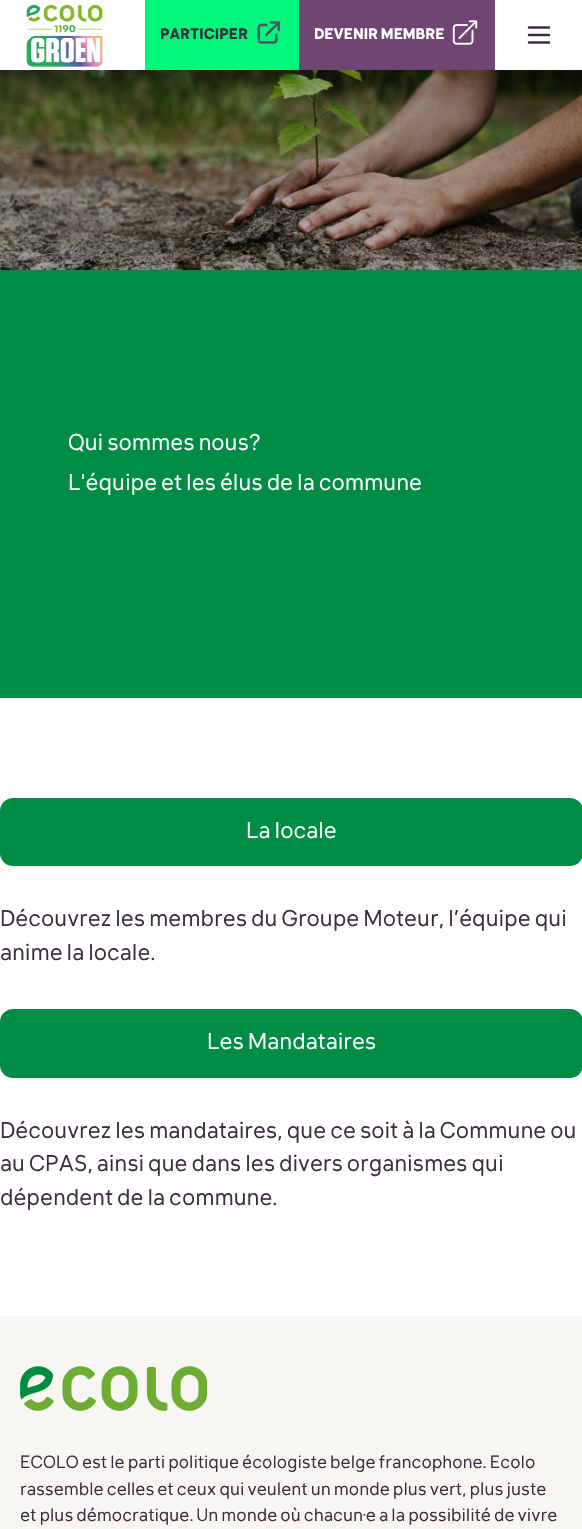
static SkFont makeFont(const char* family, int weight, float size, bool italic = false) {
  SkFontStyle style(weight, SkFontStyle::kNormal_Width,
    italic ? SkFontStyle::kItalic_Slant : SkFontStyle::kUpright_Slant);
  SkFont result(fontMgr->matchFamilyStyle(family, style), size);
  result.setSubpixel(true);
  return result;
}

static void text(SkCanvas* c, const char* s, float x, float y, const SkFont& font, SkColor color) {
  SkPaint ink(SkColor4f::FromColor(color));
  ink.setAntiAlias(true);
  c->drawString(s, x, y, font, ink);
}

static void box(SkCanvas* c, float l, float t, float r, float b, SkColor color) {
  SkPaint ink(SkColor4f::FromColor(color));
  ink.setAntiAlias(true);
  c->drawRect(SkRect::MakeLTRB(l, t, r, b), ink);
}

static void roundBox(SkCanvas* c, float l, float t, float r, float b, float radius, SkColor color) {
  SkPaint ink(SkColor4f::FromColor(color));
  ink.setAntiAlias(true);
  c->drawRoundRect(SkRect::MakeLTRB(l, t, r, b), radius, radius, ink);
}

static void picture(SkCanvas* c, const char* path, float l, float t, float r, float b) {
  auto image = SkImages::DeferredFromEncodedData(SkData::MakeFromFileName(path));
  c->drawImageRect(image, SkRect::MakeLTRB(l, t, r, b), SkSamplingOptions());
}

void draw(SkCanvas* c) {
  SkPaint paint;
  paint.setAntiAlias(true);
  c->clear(0xffffffff);
  picture(c, "img_01.png", 26, 4, 103, 67);
  box(c, 145, 0, 299, 70, 0xff00f57c);
  SkFont face1 = makeFont("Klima", 700, 15);
  text(c, "PARTICIPER", 160, 39, face1, 0xff3b2d3d);
  picture(c, "img_02.png", 257, 21, 280, 44);
  box(c, 299, 0, 495, 70, 0xff704572);
  text(c, "DEVENIR MEMBRE", 314, 39, face1, 0xffffffff);
  picture(c, "img_03.png", 452, 20, 478, 45);
  paint.setStyle(SkPaint::kStroke_Style);
  paint.setStrokeWidth(2.5f);
  paint.setStrokeCap(SkPaint::kRound_Cap);
  paint.setStrokeJoin(SkPaint::kRound_Join);
  paint.setColor(0xff3b2d3d);
  c->drawPath(SkPathBuilder().moveTo(529, 27.5f).lineTo(549, 27.5f).moveTo(529, 35).lineTo(549, 35).moveTo(529, 42.5f).lineTo(549, 42.5f).detach(), paint);
  picture(c, "img_04.png", 0, 70, 582, 270);
  box(c, 0, 270, 582, 698, 0xff008c44);
  SkFont face2 = makeFont("Klima", 400, 22.5f);
  text(c, "Qui sommes nous?", 68, 450, face2, 0xffffffff);
  text(c, "L'équipe et les élus de la commune", 68, 490, face2, 0xffffffff);
  roundBox(c, 0, 798, 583, 866, 13, 0xff008c44);
  text(c, "La locale", 246, 838, face2, 0xffffffff);
  text(c, "Découvrez les membres du Groupe Moteur, l’équipe qui", 0, 926, face2, 0xff3b2d3d);
  text(c, "anime la locale.", 0, 960, face2, 0xff3b2d3d);
  roundBox(c, 0, 1009, 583, 1078, 13, 0xff008c44);
  text(c, "Les Mandataires", 207, 1049, face2, 0xffffffff);
  text(c, "Découvrez les mandataires, que ce soit à la Commune ou", 0, 1138, face2, 0xff3b2d3d);
  text(c, "au CPAS, ainsi que dans les divers organismes qui", 0, 1171, face2, 0xff3b2d3d);
  text(c, "dépendent de la commune.", 0, 1205, face2, 0xff3b2d3d);
  box(c, 0, 1316, 582, 1529, 0xfff8f6f2);
  picture(c, "img_05.png", 20, 1366, 207, 1411);
  SkFont face3 = makeFont("Klima", 400, 17.5f);
  text(c, "ECOLO est le parti politique écologiste belge francophone. Ecolo", 20, 1468, face3, 0xff3b2d3d);
  text(c, "rassemble celles et ceux qui veulent un monde plus vert, plus juste", 20, 1495, face3, 0xff3b2d3d);
  text(c, "et plus démocratique. Un monde où chacun·e a la possibilité de vivre", 20, 1521, face3, 0xff3b2d3d);
}
